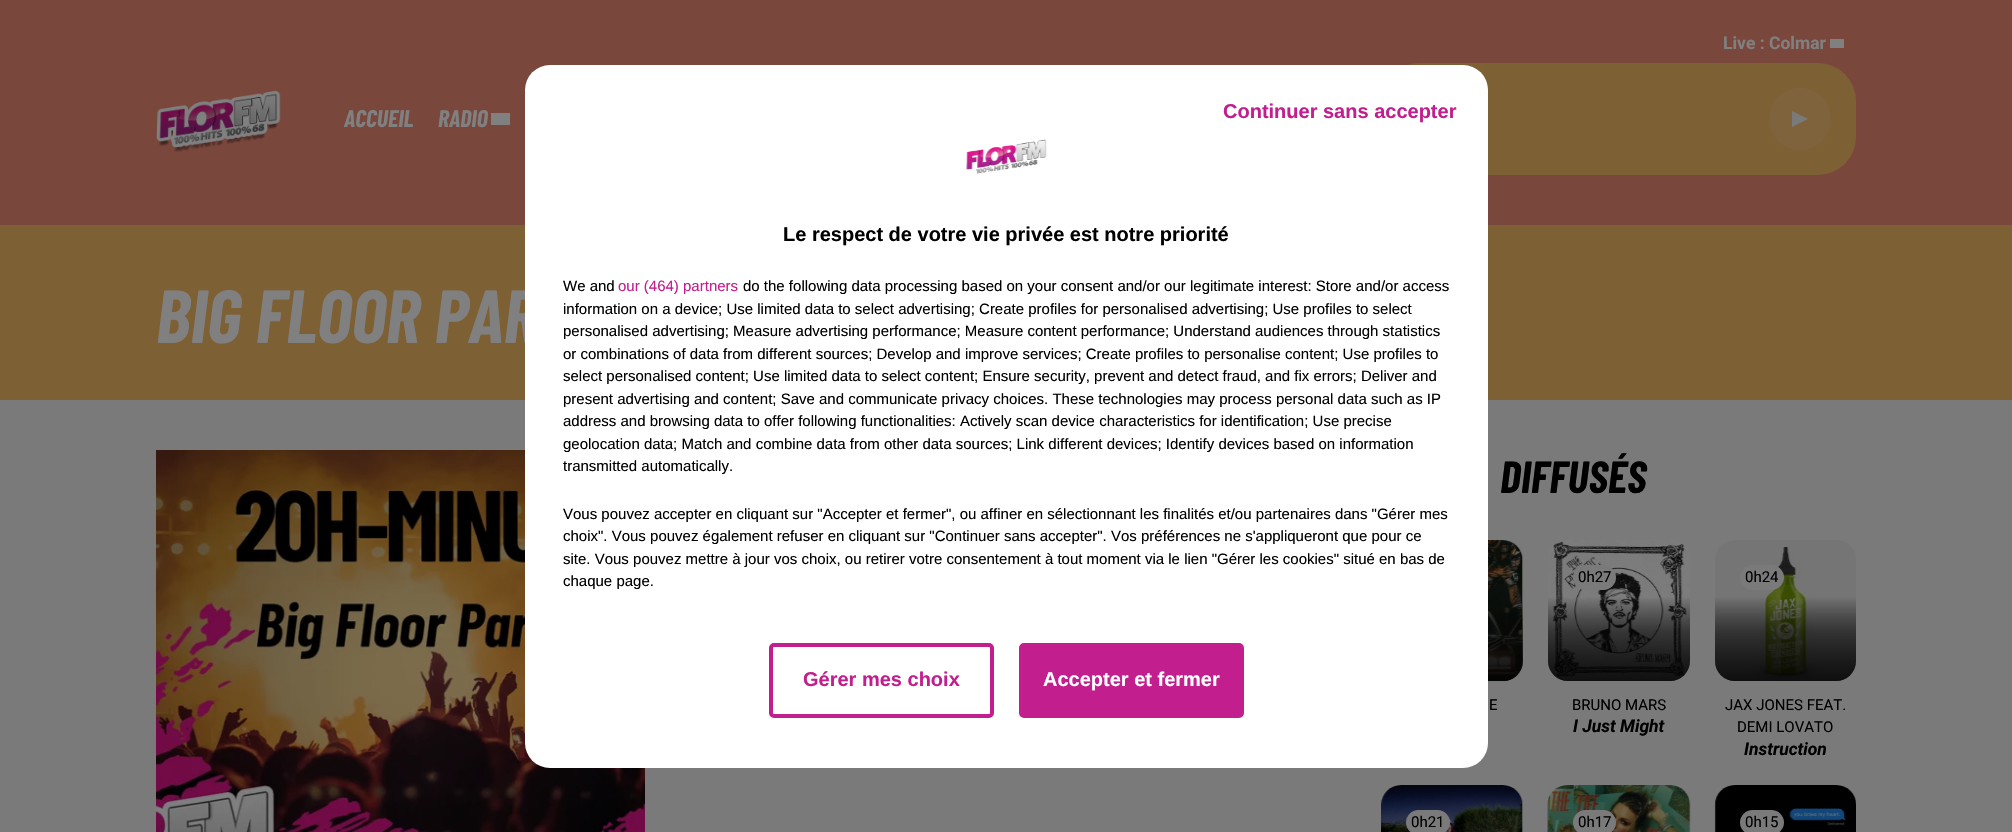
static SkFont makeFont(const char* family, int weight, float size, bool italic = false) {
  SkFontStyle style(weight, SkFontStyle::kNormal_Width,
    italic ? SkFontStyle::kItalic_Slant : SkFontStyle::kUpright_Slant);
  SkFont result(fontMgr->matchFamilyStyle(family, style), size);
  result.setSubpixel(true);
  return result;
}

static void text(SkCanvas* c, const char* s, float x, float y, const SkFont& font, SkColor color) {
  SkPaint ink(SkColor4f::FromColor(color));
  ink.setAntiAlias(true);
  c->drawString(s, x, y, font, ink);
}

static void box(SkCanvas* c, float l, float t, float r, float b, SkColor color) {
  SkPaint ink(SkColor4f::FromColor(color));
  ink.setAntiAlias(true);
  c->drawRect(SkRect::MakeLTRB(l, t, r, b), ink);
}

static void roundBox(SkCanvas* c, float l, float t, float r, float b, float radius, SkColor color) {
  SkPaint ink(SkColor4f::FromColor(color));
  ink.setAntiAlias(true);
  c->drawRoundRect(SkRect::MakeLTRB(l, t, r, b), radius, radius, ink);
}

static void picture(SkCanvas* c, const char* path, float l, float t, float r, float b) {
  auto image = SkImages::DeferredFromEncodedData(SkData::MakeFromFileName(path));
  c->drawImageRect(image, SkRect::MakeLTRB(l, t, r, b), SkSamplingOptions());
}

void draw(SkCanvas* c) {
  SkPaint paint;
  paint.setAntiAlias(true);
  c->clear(0xff7b7a7a);
  box(c, 0, 0, 2012, 225, 0xff7a473d);
  SkFont face1 = makeFont("Roboto", 700, 17.5f);
  text(c, "Live : Colmar", 1723, 49, face1, 0xff808080);
  box(c, 1830, 39, 1844, 48, 0xff808080);
  roundBox(c, 1381, 63, 1856, 175, 38, 0xff7e6035);
  paint.setColor(0xff7e633c);
  c->drawCircle(1800, 119, 31, paint);
  paint.setColor(0xff7b7a7a);
  c->drawPath(SkPathBuilder().moveTo(1808, 119).lineTo(1792, 127).lineTo(1792, 111).close().detach(), paint);
  picture(c, "img_01.png", 156, 90, 281, 152);
  SkFont face2 = makeFont("Barlow Condensed", 700, 24, true);
  text(c, "ACCUEIL", 344, 127, face2, 0xff808080);
  text(c, "RADIO", 438, 127, face2, 0xff808080);
  box(c, 491, 113, 510, 125, 0xff808080);
  box(c, 0, 225, 2012, 400, 0xff7e6035);
  SkFont face3 = makeFont("Barlow Condensed", 700, 75, true);
  text(c, "BIG FLOOR PAR", 156, 343, face3, 0xff808080);
  picture(c, "img_02.png", 156, 450, 645, 832);
  SkFont face4 = makeFont("Barlow Condensed", 700, 45, true);
  text(c, "DIFFUSÉS", 1500, 493, face4, 0xff000000);
  picture(c, "img_03.png", 1488, 540, 1523, 682);
  {
    const SkColor colors[] = {0x00000000, 0x00000000, 0x57000000, 0xa6000000};
    const float stops[] = {0, 0.4f, 0.65f, 1};
    const SkPoint ends[] = {{1452, 540}, {1452, 681}};
    paint.setShader(SkGradientShader::MakeLinear(ends, colors, stops, 4, SkTileMode::kClamp));
    paint.setAlpha(255);
  }
  c->drawRoundRect(SkRect::MakeLTRB(1381, 540, 1523, 681), 20, 20, paint);
  c->drawRoundRect(SkRect::MakeLTRB(1381, 540, 1523, 681), 20, 20, paint);
  SkFont face5 = makeFont("Roboto", 400, 15);
  text(c, "E", 1489, 710, face5, 0xff000000);
  picture(c, "img_04.png", 1548, 540, 1690, 681);
  {
    const SkColor colors[] = {0x00000000, 0x00000000, 0x57000000, 0xa6000000};
    const float stops[] = {0, 0.4f, 0.65f, 1};
    const SkPoint ends[] = {{1619, 540}, {1619, 681}};
    paint.setShader(SkGradientShader::MakeLinear(ends, colors, stops, 4, SkTileMode::kClamp));
    paint.setAlpha(255);
  }
  c->drawRoundRect(SkRect::MakeLTRB(1548, 540, 1690, 681), 20, 20, paint);
  c->drawRoundRect(SkRect::MakeLTRB(1548, 540, 1690, 681), 20, 20, paint);
  roundBox(c, 1573, 565, 1616, 590, 12.5f, 0xff7b7a7a);
  text(c, "0h27", 1578, 582, face5, 0xff000000);
  text(c, "BRUNO MARS", 1572, 710, face5, 0xff000000);
  SkFont face6 = makeFont("Roboto", 700, 17.5f, true);
  text(c, "I Just Might", 1573, 732, face6, 0xff000000);
  picture(c, "img_05.png", 1715, 540, 1856, 681);
  {
    const SkColor colors[] = {0x00000000, 0x00000000, 0x57000000, 0xa6000000};
    const float stops[] = {0, 0.4f, 0.65f, 1};
    const SkPoint ends[] = {{1786, 540}, {1786, 681}};
    paint.setShader(SkGradientShader::MakeLinear(ends, colors, stops, 4, SkTileMode::kClamp));
    paint.setAlpha(255);
  }
  c->drawRoundRect(SkRect::MakeLTRB(1715, 540, 1856, 681), 20, 20, paint);
  c->drawRoundRect(SkRect::MakeLTRB(1715, 540, 1856, 681), 20, 20, paint);
  roundBox(c, 1740, 565, 1784, 590, 12.5f, 0xff7b7a7a);
  text(c, "0h24", 1745, 582, face5, 0xff000000);
  text(c, "JAX JONES FEAT.", 1725, 710, face5, 0xff000000);
  text(c, "DEMI LOVATO", 1737, 732, face5, 0xff000000);
  text(c, "Instruction", 1744, 755, face6, 0xff000000);
  picture(c, "img_06.png", 1381, 785, 1523, 832);
  roundBox(c, 1406, 810, 1450, 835, 12.5f, 0xff7b7a7a);
  text(c, "0h21", 1411, 827, face5, 0xff000000);
  picture(c, "img_07.png", 1547, 785, 1691, 832);
  roundBox(c, 1573, 810, 1616, 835, 12.5f, 0xff7b7a7a);
  text(c, "0h17", 1578, 827, face5, 0xff000000);
  picture(c, "img_08.png", 1714, 785, 1856, 832);
  roundBox(c, 1740, 810, 1784, 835, 12.5f, 0xff7b7a7a);
  text(c, "0h15", 1745, 827, face5, 0xff000000);
  roundBox(c, 525, 65, 1488, 768, 25, 0xffffffff);
  SkFont face7 = makeFont("Liberation Sans", 700, 20);
  text(c, "Continuer sans accepter", 1223, 118, face7, 0xffc21e8d);
  paint.setStyle(SkPaint::kStroke_Style);
  paint.setStrokeWidth(4);
  paint.setShader(nullptr);
  paint.setColor(0xffc21e8d);
  c->drawRoundRect(SkRect::MakeLTRB(771, 645, 992, 716), 3, 3, paint);
  text(c, "Gérer mes choix", 803, 686, face7, 0xffc21e8d);
  paint.setStyle(SkPaint::kFill_Style);
  c->drawRoundRect(SkRect::MakeLTRB(1021, 645, 1242, 716), 3, 3, paint);
  paint.setStyle(SkPaint::kStroke_Style);
  c->drawRoundRect(SkRect::MakeLTRB(1021, 645, 1242, 716), 3, 3, paint);
  text(c, "Accepter et fermer", 1043, 686, face7, 0xffffffff);
  picture(c, "img_09.png", 966, 139, 1047, 174);
  text(c, "Le respect de votre vie privée est notre priorité", 783, 241, face7, 0xff000000);
  SkFont face8 = makeFont("Liberation Sans", 400, 15);
  text(c, "We and", 563, 291, face8, 0xff000000);
  text(c, "our (464) partners", 618, 291, face8, 0xffc21e8d);
  text(c, "do the following data processing based on your consent and/or our legitimate interest: Store and/or access", 743, 291, face8, 0xff000000);
  text(c, "information on a device; Use limited data to select advertising; Create profiles for personalised advertising; Use profiles to select", 563, 314, face8, 0xff000000);
  text(c, "personalised advertising; Measure advertising performance; Measure content performance; Understand audiences through statistics", 563, 336, face8, 0xff000000);
  text(c, "or combinations of data from different sources; Develop and improve services; Create profiles to personalise content; Use profiles to", 563, 359, face8, 0xff000000);
  text(c, "select personalised content; Use limited data to select content; Ensure security, prevent and detect fraud, and fix errors; Deliver and", 563, 381, face8, 0xff000000);
  text(c, "present advertising and content; Save and communicate privacy choices. These technologies may process personal data such as IP", 563, 404, face8, 0xff000000);
  text(c, "address and browsing data to offer following functionalities: Actively scan device characteristics for identification; Use precise", 563, 426, face8, 0xff000000);
  text(c, "geolocation data; Match and combine data from other data sources; Link different devices; Identify devices based on information", 563, 449, face8, 0xff000000);
  text(c, "transmitted automatically.", 563, 471, face8, 0xff000000);
  text(c, "Vous pouvez accepter en cliquant sur \"Accepter et fermer\", ou affiner en sélectionnant les finalités et/ou partenaires dans \"Gérer mes", 563, 519, face8, 0xff000000);
  text(c, "choix\". Vous pouvez également refuser en cliquant sur \"Continuer sans accepter\". Vos préférences ne s'appliqueront que pour ce", 563, 541, face8, 0xff000000);
  text(c, "site. Vous pouvez mettre à jour vos choix, ou retirer votre consentement à tout moment via le lien \"Gérer les cookies\" situé en bas de", 563, 564, face8, 0xff000000);
  text(c, "chaque page.", 563, 586, face8, 0xff000000);
}
